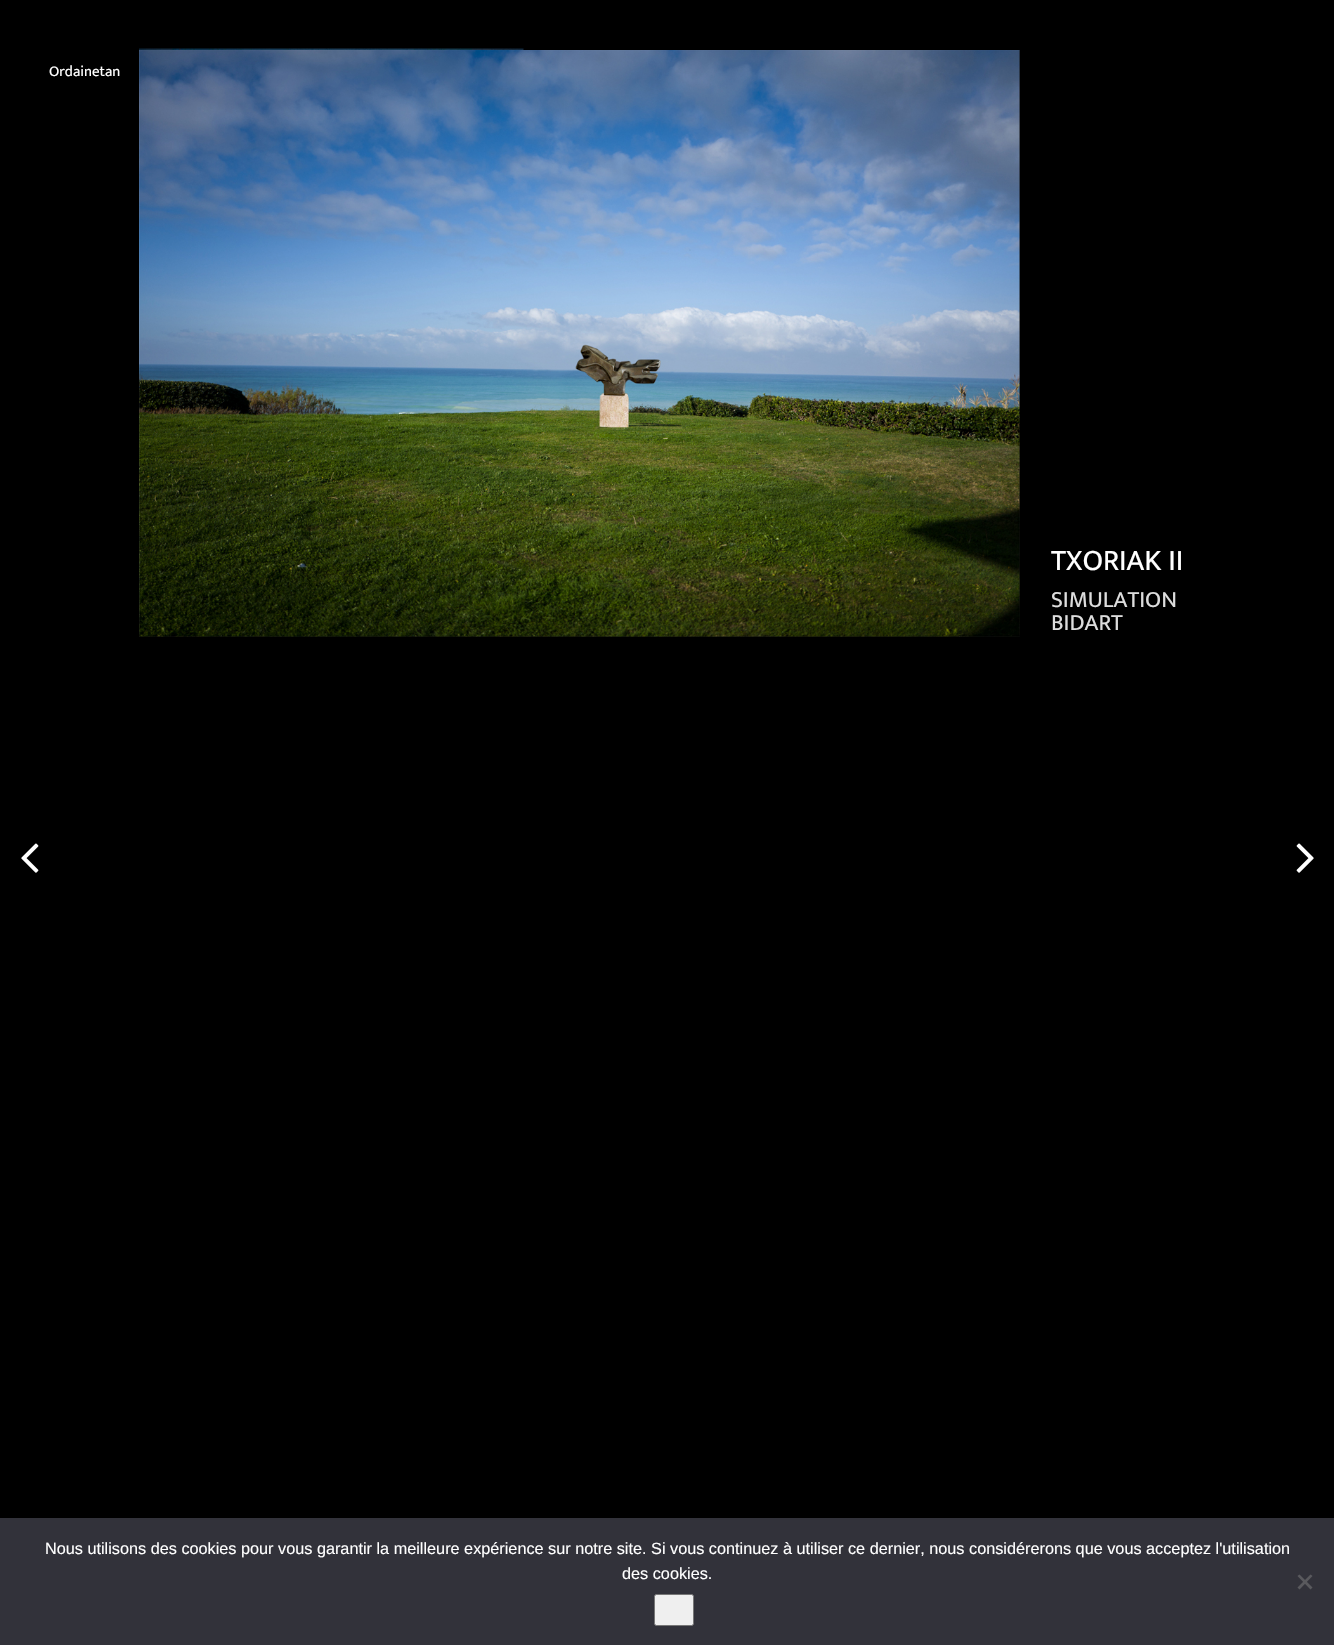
static SkFont makeFont(const char* family, int weight, float size, bool italic = false) {
  SkFontStyle style(weight, SkFontStyle::kNormal_Width,
    italic ? SkFontStyle::kItalic_Slant : SkFontStyle::kUpright_Slant);
  SkFont result(fontMgr->matchFamilyStyle(family, style), size);
  result.setSubpixel(true);
  return result;
}

static void text(SkCanvas* c, const char* s, float x, float y, const SkFont& font, SkColor color) {
  SkPaint ink(SkColor4f::FromColor(color));
  ink.setAntiAlias(true);
  c->drawString(s, x, y, font, ink);
}

static void box(SkCanvas* c, float l, float t, float r, float b, SkColor color) {
  SkPaint ink(SkColor4f::FromColor(color));
  ink.setAntiAlias(true);
  c->drawRect(SkRect::MakeLTRB(l, t, r, b), ink);
}

static void picture(SkCanvas* c, const char* path, float l, float t, float r, float b) {
  auto image = SkImages::DeferredFromEncodedData(SkData::MakeFromFileName(path));
  c->drawImageRect(image, SkRect::MakeLTRB(l, t, r, b), SkSamplingOptions());
}

void draw(SkCanvas* c) {
  SkPaint paint;
  paint.setAntiAlias(true);
  c->clear(0xff000000);
  SkFont face1 = makeFont("Mukta Vaani", 400, 15);
  text(c, "Ordainetan", 49, 76, face1, 0xffffffff);
  picture(c, "img_01.png", 139, 48, 1020, 637);
  SkFont face2 = makeFont("Mukta Vaani", 400, 30);
  text(c, "TXORIAK II", 1051, 570, face2, 0xffffffff);
  SkFont face3 = makeFont("Mukta Vaani", 400, 23.5f);
  text(c, "SIMULATION", 1051, 607, face3, 0xffdddddd);
  text(c, "BIDART", 1051, 630, face3, 0xffdddddd);
  picture(c, "img_02.png", 21, 843, 39, 873);
  picture(c, "img_03.png", 1296, 843, 1314, 873);
  box(c, 0, 1518, 1334, 1645, 0xff32323a);
  SkFont face4 = makeFont("Liberation Sans", 400, 16.25f);
  text(c, "Nous utilisons des cookies pour vous garantir la meilleure expérience sur notre site. Si vous continuez à utiliser ce dernier, nous considérerons que vous acceptez l'utilisation", 45, 1554, face4, 0xffffffff);
  text(c, "des cookies.", 622, 1579, face4, 0xffffffff);
  paint.setColor(0xff59595d);
  c->drawPath(SkPathBuilder().moveTo(1310.5f, 1574.5f).lineTo(1312.5f, 1576).lineTo(1299.5f, 1589.5f).lineTo(1297.5f, 1587.5f).close().detach(), paint);
  c->drawPath(SkPathBuilder().moveTo(1297.5f, 1576).lineTo(1299.5f, 1574.5f).lineTo(1312.5f, 1587.5f).lineTo(1310.5f, 1589.5f).close().detach(), paint);
  paint.setColor(0xffefefef);
  c->drawRoundRect(SkRect::MakeLTRB(654.5f, 1594.5f, 693.5f, 1625.5f), 2, 2, paint);
  paint.setStyle(SkPaint::kStroke_Style);
  paint.setStrokeWidth(1);
  paint.setColor(0xff767676);
  c->drawRoundRect(SkRect::MakeLTRB(654.5f, 1594.5f, 693.5f, 1625.5f), 2, 2, paint);
}
